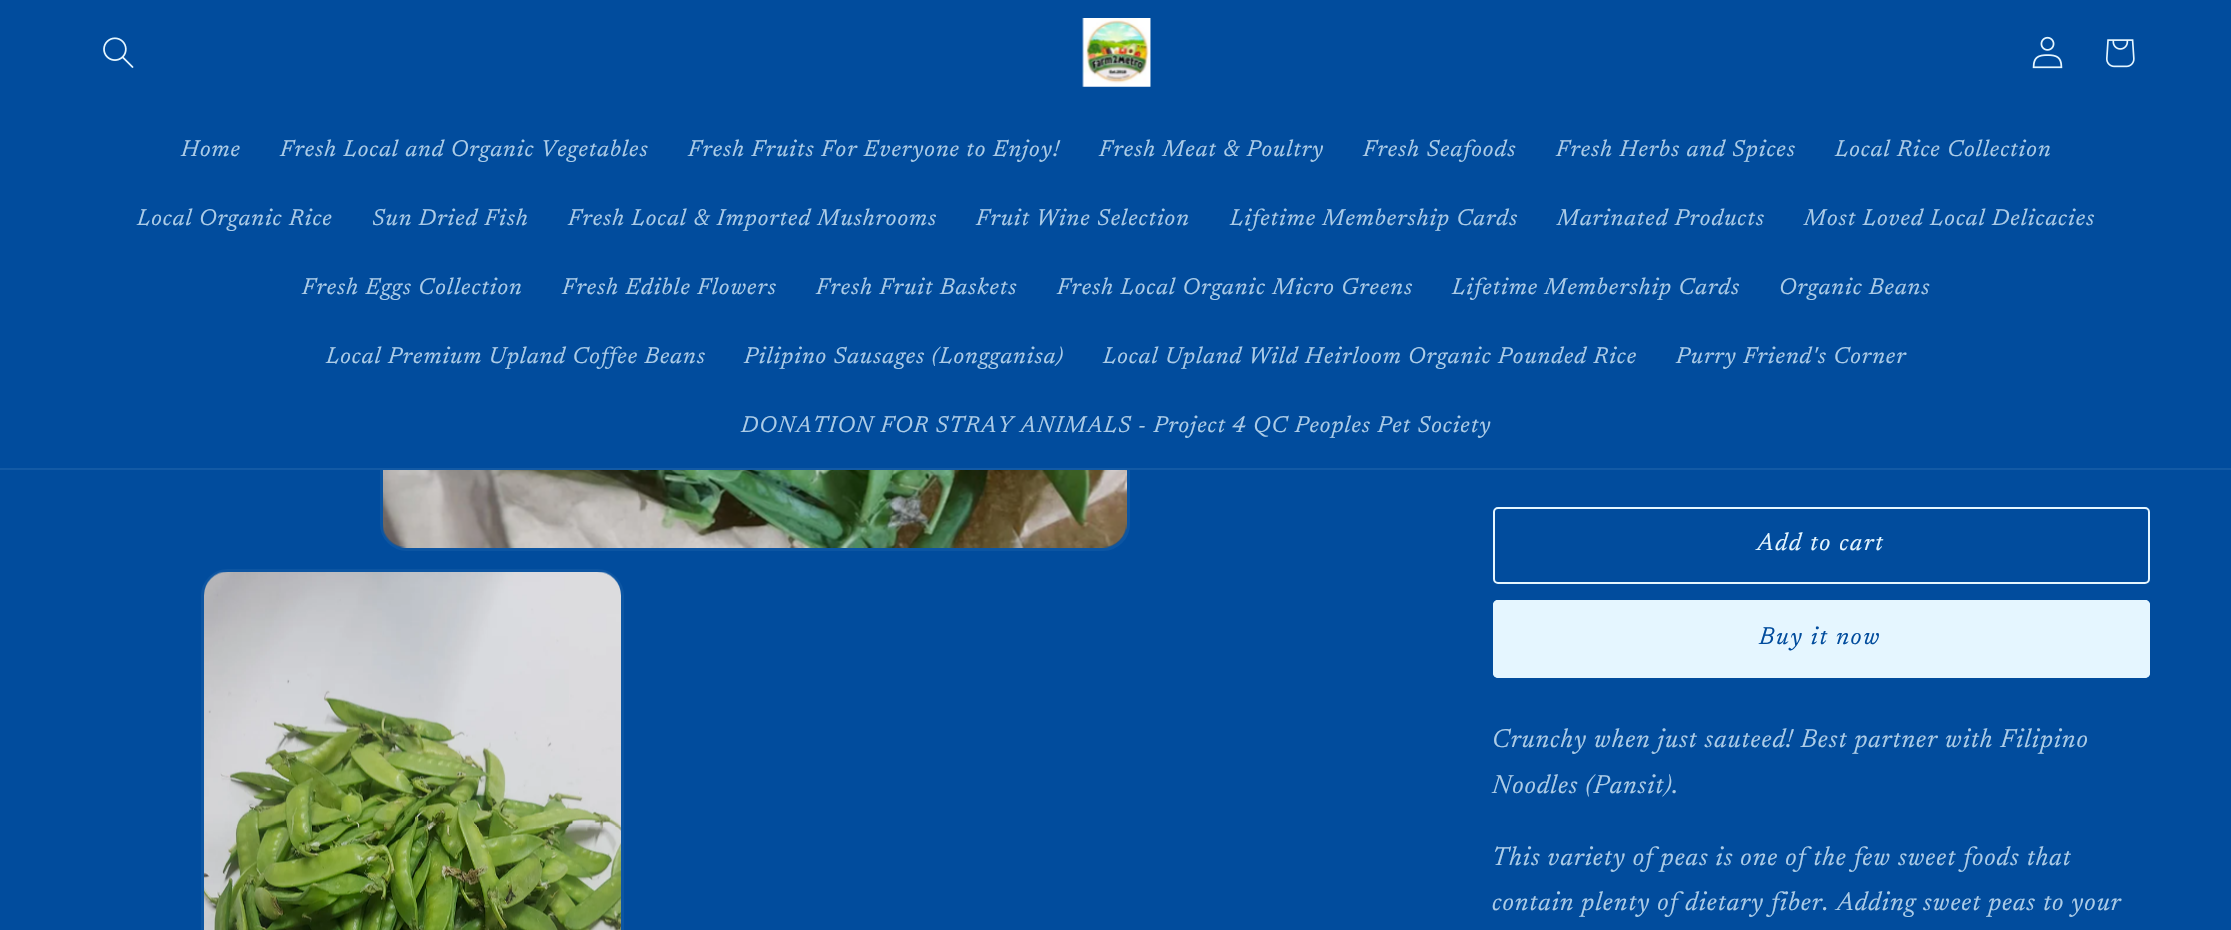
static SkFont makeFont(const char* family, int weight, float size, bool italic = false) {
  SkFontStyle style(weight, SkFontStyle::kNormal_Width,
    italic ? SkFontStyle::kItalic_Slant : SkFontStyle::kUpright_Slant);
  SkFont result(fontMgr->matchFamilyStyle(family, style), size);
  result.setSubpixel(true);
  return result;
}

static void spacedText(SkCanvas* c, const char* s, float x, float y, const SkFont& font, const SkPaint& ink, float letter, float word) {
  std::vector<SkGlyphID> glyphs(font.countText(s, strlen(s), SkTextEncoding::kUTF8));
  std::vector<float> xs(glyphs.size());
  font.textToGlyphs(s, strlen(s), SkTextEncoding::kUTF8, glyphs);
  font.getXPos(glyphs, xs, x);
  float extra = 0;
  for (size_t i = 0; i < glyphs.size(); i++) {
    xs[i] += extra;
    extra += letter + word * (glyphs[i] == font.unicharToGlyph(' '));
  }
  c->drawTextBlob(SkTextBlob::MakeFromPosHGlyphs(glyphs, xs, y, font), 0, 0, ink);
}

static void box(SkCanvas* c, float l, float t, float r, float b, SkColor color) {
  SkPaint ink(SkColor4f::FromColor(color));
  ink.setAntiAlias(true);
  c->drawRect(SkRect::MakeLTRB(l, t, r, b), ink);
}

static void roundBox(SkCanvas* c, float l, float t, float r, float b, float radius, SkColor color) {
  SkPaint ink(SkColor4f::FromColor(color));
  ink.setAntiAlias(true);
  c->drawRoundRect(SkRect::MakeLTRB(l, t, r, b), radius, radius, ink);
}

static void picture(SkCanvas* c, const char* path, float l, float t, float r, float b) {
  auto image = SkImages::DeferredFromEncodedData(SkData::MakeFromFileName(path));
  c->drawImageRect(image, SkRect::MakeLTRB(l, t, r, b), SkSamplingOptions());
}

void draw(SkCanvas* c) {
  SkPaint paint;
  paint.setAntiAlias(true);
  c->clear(0xff014c9d);
  paint.setStyle(SkPaint::kStroke_Style);
  paint.setStrokeWidth(3);
  paint.setColor(0xff0c55a2);
  c->drawRoundRect(SkRect::MakeLTRB(381.5f, -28.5f, 1128.5f, 549.5f), 25.5f, 25.5f, paint);
  box(c, 380, 0, 1130, 468, 0xff014c9d);
  box(c, 0, 468, 2231, 470, 0xff135aa5);
  picture(c, "img_01.png", 103, 37, 134, 68);
  picture(c, "img_02.png", 1082, 18, 1151, 87);
  picture(c, "img_03.png", 2032, 36, 2063, 69);
  picture(c, "img_04.png", 2106, 39, 2135, 68);
  SkFont face1 = makeFont("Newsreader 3", 400, 23.1f, true);
  paint.setStyle(SkPaint::kFill_Style);
  paint.setColor(0xffaccce7);
  spacedText(c, "Home", 181, 156, face1, paint, 1, 0);
  spacedText(c, "Fresh Local and Organic Vegetables", 280, 156, face1, paint, 1, 0);
  spacedText(c, "Fresh Fruits For Everyone to Enjoy!", 688, 156, face1, paint, 1, 0);
  spacedText(c, "Fresh Meat & Poultry", 1099, 156, face1, paint, 1, 0);
  spacedText(c, "Fresh Seafoods", 1363, 156, face1, paint, 1, 0);
  spacedText(c, "Fresh Herbs and Spices", 1556, 156, face1, paint, 1, 0);
  spacedText(c, "Local Rice Collection", 1835, 156, face1, paint, 1, 0);
  spacedText(c, "Local Organic Rice", 137, 225, face1, paint, 1, 0);
  spacedText(c, "Sun Dried Fish", 372, 225, face1, paint, 1, 0);
  spacedText(c, "Fresh Local & Imported Mushrooms", 568, 225, face1, paint, 1, 0);
  spacedText(c, "Fruit Wine Selection", 976, 225, face1, paint, 1, 0);
  spacedText(c, "Lifetime Membership Cards", 1230, 225, face1, paint, 1, 0);
  spacedText(c, "Marinated Products", 1557, 225, face1, paint, 1, 0);
  spacedText(c, "Most Loved Local Delicacies", 1804, 225, face1, paint, 1, 0);
  spacedText(c, "Fresh Eggs Collection", 302, 294, face1, paint, 1, 0);
  spacedText(c, "Fresh Edible Flowers", 562, 294, face1, paint, 1, 0);
  spacedText(c, "Fresh Fruit Baskets", 816, 294, face1, paint, 1, 0);
  spacedText(c, "Fresh Local Organic Micro Greens", 1057, 294, face1, paint, 1, 0);
  spacedText(c, "Lifetime Membership Cards", 1452, 294, face1, paint, 1, 0);
  spacedText(c, "Organic Beans", 1779, 294, face1, paint, 1, 0);
  spacedText(c, "Local Premium Upland Coffee Beans", 326, 363, face1, paint, 1, 0);
  spacedText(c, "Pilipino Sausages (Longganisa)", 744, 363, face1, paint, 1, 0);
  spacedText(c, "Local Upland Wild Heirloom Organic Pounded Rice", 1103, 363, face1, paint, 1, 0);
  spacedText(c, "Purry Friend's Corner", 1676, 363, face1, paint, 1, 0);
  spacedText(c, "DONATION FOR STRAY ANIMALS - Project 4 QC Peoples Pet Society", 741, 432, face1, paint, 1, 0);
  picture(c, "img_05.png", 383, 470, 1127, 548);
  paint.setStyle(SkPaint::kStroke_Style);
  paint.setColor(0xff0c55a2);
  c->drawRoundRect(SkRect::MakeLTRB(202.5f, 570.5f, 622.5f, 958.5f), 25.5f, 25.5f, paint);
  picture(c, "img_06.png", 204, 572, 621, 930);
  paint.setStrokeWidth(2);
  paint.setColor(0xffe5f6ff);
  c->drawRoundRect(SkRect::MakeLTRB(1494, 508, 2149, 583), 4, 4, paint);
  SkFont face2 = makeFont("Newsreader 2", 400, 24.75f, true);
  paint.setStyle(SkPaint::kFill_Style);
  spacedText(c, "Add to cart", 1757, 550, face2, paint, 1.6f, 0);
  roundBox(c, 1493, 600, 2150, 678, 5, 0xffe5f6ff);
  paint.setStyle(SkPaint::kStroke_Style);
  c->drawRoundRect(SkRect::MakeLTRB(1494, 601, 2149, 677), 4, 4, paint);
  paint.setStyle(SkPaint::kFill_Style);
  paint.setColor(0xff014c9d);
  spacedText(c, "Buy it now", 1759, 644, face2, paint, 1.6f, 0);
  SkFont face3 = makeFont("Newsreader", 400, 26.4f, true);
  paint.setColor(0xffaccce7);
  spacedText(c, "Crunchy when just sauteed! Best partner with Filipino", 1492, 747, face3, paint, 1, 0);
  spacedText(c, "Noodles (Pansit).", 1492, 793, face3, paint, 1, 0);
  spacedText(c, "This variety of peas is one of the few sweet foods that", 1492, 865, face3, paint, 1, 0);
  spacedText(c, "contain plenty of dietary fiber. Adding sweet peas to your", 1492, 910, face3, paint, 1, 0);
}
